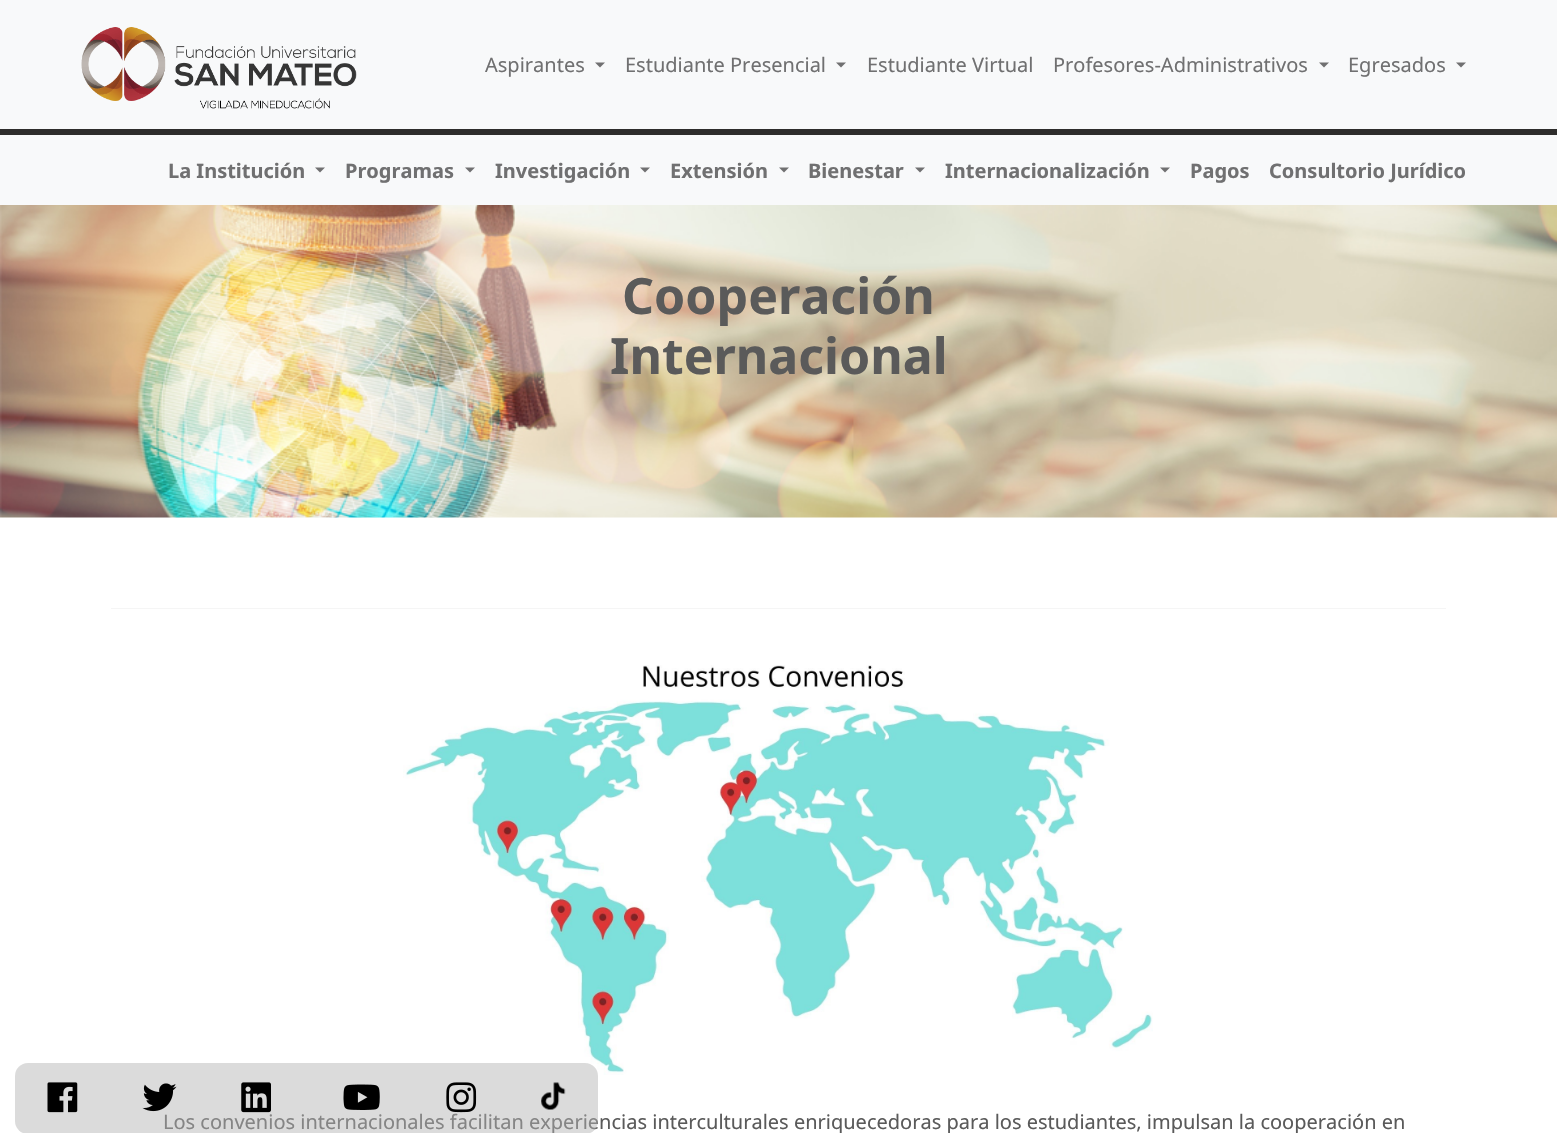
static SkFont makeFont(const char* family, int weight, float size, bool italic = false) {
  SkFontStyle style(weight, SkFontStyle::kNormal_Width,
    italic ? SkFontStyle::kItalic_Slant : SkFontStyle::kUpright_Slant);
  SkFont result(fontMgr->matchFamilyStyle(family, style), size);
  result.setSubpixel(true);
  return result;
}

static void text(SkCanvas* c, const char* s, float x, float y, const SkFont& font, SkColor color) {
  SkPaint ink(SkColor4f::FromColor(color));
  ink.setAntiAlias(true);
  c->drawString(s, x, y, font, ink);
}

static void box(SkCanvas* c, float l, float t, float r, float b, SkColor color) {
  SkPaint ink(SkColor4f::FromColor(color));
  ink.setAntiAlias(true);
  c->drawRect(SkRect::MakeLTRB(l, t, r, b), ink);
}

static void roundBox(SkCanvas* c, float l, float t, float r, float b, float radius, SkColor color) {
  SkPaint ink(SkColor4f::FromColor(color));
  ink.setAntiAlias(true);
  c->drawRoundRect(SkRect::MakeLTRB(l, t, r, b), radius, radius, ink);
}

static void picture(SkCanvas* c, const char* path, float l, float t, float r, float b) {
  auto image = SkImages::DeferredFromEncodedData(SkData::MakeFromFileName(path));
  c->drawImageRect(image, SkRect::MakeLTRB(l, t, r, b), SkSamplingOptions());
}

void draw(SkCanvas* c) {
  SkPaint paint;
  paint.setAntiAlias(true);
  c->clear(0xffffffff);
  box(c, 0, 0, 1557, 129, 0xfff8f9fa);
  picture(c, "img_01.png", 81, 27, 357, 109);
  SkFont face1 = makeFont("Noto Sans", 400, 20);
  text(c, "Aspirantes", 485, 72, face1, 0xff707071);
  paint.setColor(0xff707071);
  c->drawPath(SkPathBuilder().moveTo(595, 62.5f).lineTo(605, 62.5f).lineTo(600, 67.5f).close().detach(), paint);
  text(c, "Estudiante Presencial", 625, 72, face1, 0xff707071);
  c->drawPath(SkPathBuilder().moveTo(836, 62.5f).lineTo(846, 62.5f).lineTo(841, 67.5f).close().detach(), paint);
  text(c, "Estudiante Virtual", 867, 72, face1, 0xff707071);
  text(c, "Profesores-Administrativos", 1053, 72, face1, 0xff707071);
  c->drawPath(SkPathBuilder().moveTo(1319, 62.5f).lineTo(1329, 62.5f).lineTo(1324, 67.5f).close().detach(), paint);
  text(c, "Egresados", 1348, 72, face1, 0xff707071);
  c->drawPath(SkPathBuilder().moveTo(1456, 62.5f).lineTo(1466, 62.5f).lineTo(1461, 67.5f).close().detach(), paint);
  box(c, 0, 129, 1557, 135, 0xff2e2d2c);
  box(c, 0, 135, 1557, 205, 0xfff8f9fa);
  SkFont face2 = makeFont("Noto Sans", 700, 20);
  text(c, "La Institución", 168, 178, face2, 0xff707071);
  c->drawPath(SkPathBuilder().moveTo(315, 167.5f).lineTo(325, 167.5f).lineTo(320, 172.5f).close().detach(), paint);
  text(c, "Programas", 345, 178, face2, 0xff707071);
  c->drawPath(SkPathBuilder().moveTo(465, 167.5f).lineTo(475, 167.5f).lineTo(470, 172.5f).close().detach(), paint);
  text(c, "Investigación", 495, 178, face2, 0xff707071);
  c->drawPath(SkPathBuilder().moveTo(640, 167.5f).lineTo(650, 167.5f).lineTo(645, 172.5f).close().detach(), paint);
  text(c, "Extensión", 670, 178, face2, 0xff707071);
  c->drawPath(SkPathBuilder().moveTo(779, 167.5f).lineTo(789, 167.5f).lineTo(784, 172.5f).close().detach(), paint);
  text(c, "Bienestar", 808, 178, face2, 0xff707071);
  c->drawPath(SkPathBuilder().moveTo(915, 167.5f).lineTo(925, 167.5f).lineTo(920, 172.5f).close().detach(), paint);
  text(c, "Internacionalización", 945, 178, face2, 0xff707071);
  c->drawPath(SkPathBuilder().moveTo(1160, 167.5f).lineTo(1170, 167.5f).lineTo(1165, 172.5f).close().detach(), paint);
  text(c, "Pagos", 1190, 178, face2, 0xff707071);
  text(c, "Consultorio Jurídico", 1269, 178, face2, 0xff707071);
  picture(c, "img_02.png", 0, 205, 1557, 518);
  SkFont face3 = makeFont("Noto Sans", 700, 50);
  text(c, "Cooperación", 622, 314, face3, 0xff5a5a5a);
  text(c, "Internacional", 610, 374, face3, 0xff5a5a5a);
  picture(c, "img_09.png", 403, 665, 1153, 1075);
  text(c, "Los convenios internacionales facilitan experiencias interculturales enriquecedoras para los estudiantes, impulsan la cooperación en", 163, 1129, face1, 0xff5a5a5a);
  roundBox(c, 15, 1063, 598, 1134, 13, 0x7ab3b3b3);
  picture(c, "img_03.png", 47, 1082, 78, 1113);
  picture(c, "img_04.png", 142, 1083, 177, 1112);
  picture(c, "img_05.png", 241, 1082, 271, 1113);
  picture(c, "img_06.png", 343, 1084, 380, 1110);
  picture(c, "img_07.png", 446, 1082, 477, 1113);
  picture(c, "img_08.png", 541, 1082, 566, 1110);
  box(c, 111, 608, 1446, 609, 0xfff5f5f5);
}
